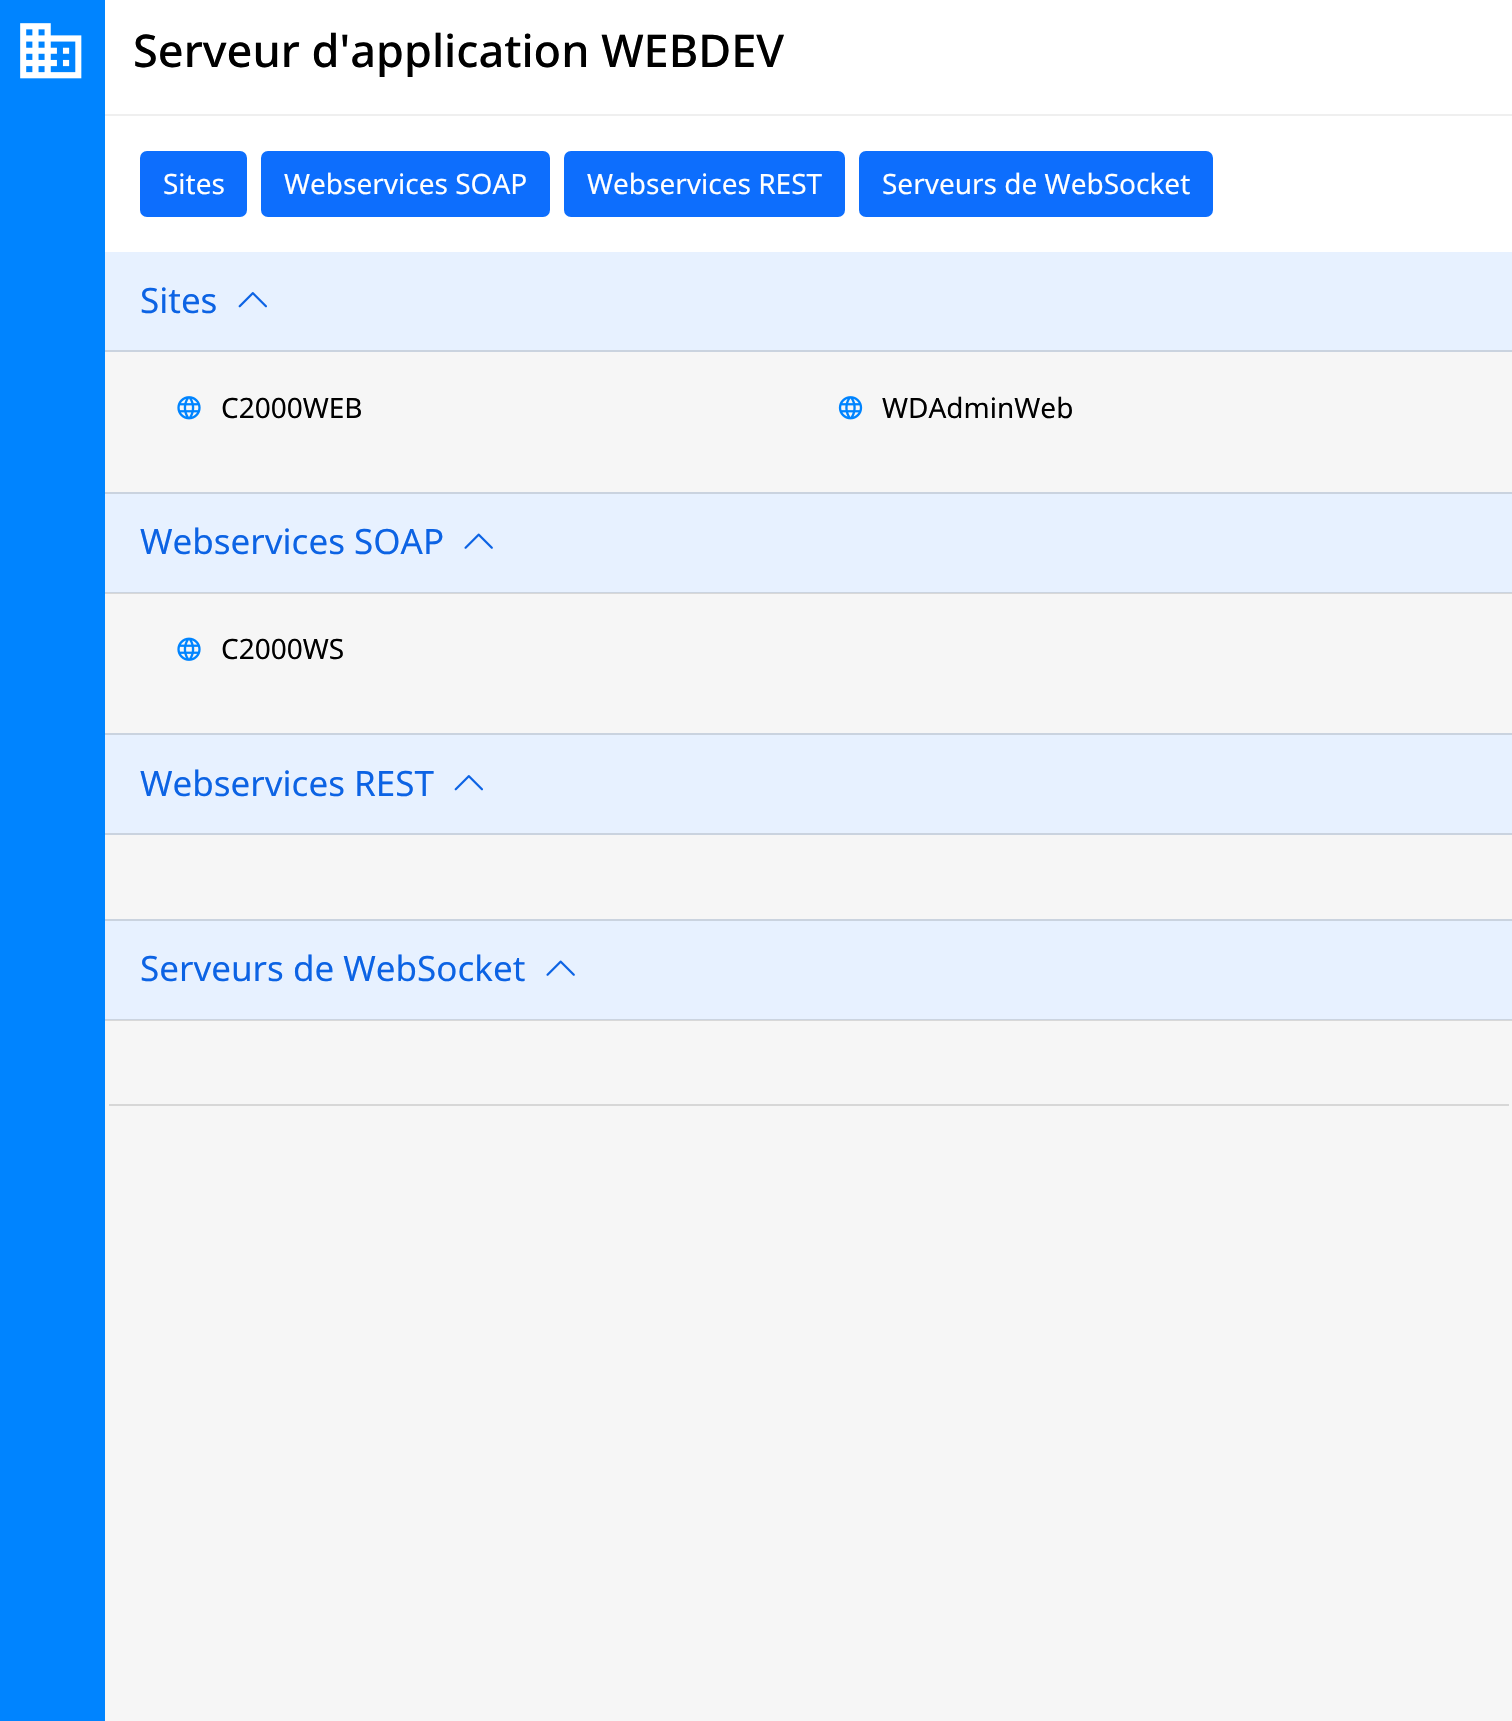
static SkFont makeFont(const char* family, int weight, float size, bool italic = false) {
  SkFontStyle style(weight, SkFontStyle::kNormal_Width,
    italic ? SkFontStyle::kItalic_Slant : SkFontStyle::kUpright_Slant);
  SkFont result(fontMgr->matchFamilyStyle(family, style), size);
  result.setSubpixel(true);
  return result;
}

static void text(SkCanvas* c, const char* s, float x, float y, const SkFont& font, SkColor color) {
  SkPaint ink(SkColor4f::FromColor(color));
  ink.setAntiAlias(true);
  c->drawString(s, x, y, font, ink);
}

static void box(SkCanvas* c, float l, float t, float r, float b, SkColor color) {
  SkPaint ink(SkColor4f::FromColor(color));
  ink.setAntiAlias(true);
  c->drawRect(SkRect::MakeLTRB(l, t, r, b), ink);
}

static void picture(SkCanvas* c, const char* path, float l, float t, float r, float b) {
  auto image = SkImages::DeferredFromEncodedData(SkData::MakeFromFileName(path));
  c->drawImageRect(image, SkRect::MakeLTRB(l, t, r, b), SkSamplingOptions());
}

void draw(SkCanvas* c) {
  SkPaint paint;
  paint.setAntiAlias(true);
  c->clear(0xfff6f6f6);
  box(c, 105, 1020, 1512, 1021, 0xffd8d8d8);
  box(c, 105, 593, 1512, 594, 0xffd8d8d8);
  box(c, 0, 0, 105, 1721, 0xff0084ff);
  picture(c, "img_01.png", 20, 23, 82, 79);
  box(c, 105, 0, 1512, 252, 0xffffffff);
  box(c, 105, 114, 1512, 116, 0xffefefef);
  c->save();
  c->clipRect(SkRect::MakeLTRB(133, 23, 1237, 77));
  SkFont face1 = makeFont("Noto Sans", 500, 45.1f);
  text(c, "Serveur d'application WEBDEV", 133, 67, face1, 0xff000000);
  c->restore();
  paint.setColor(0xff0d6efd);
  c->drawRoundRect(SkRect::MakeLTRB(141, 152, 246, 216), 6, 6, paint);
  paint.setStyle(SkPaint::kStroke_Style);
  paint.setStrokeWidth(2);
  c->drawRoundRect(SkRect::MakeLTRB(141, 152, 246, 216), 6, 6, paint);
  SkFont face2 = makeFont("Noto Sans", 400, 28);
  text(c, "Sites", 163, 194, face2, 0xffffffff);
  paint.setStyle(SkPaint::kFill_Style);
  c->drawRoundRect(SkRect::MakeLTRB(262, 152, 549, 216), 6, 6, paint);
  paint.setStyle(SkPaint::kStroke_Style);
  c->drawRoundRect(SkRect::MakeLTRB(262, 152, 549, 216), 6, 6, paint);
  text(c, "Webservices SOAP", 284, 194, face2, 0xffffffff);
  paint.setStyle(SkPaint::kFill_Style);
  c->drawRoundRect(SkRect::MakeLTRB(565, 152, 844, 216), 6, 6, paint);
  paint.setStyle(SkPaint::kStroke_Style);
  c->drawRoundRect(SkRect::MakeLTRB(565, 152, 844, 216), 6, 6, paint);
  text(c, "Webservices REST", 587, 194, face2, 0xffffffff);
  paint.setStyle(SkPaint::kFill_Style);
  c->drawRoundRect(SkRect::MakeLTRB(860, 152, 1212, 216), 6, 6, paint);
  paint.setStyle(SkPaint::kStroke_Style);
  c->drawRoundRect(SkRect::MakeLTRB(860, 152, 1212, 216), 6, 6, paint);
  text(c, "Serveurs de WebSocket", 882, 194, face2, 0xffffffff);
  box(c, 105, 252, 1512, 350, 0xffe7f1ff);
  box(c, 105, 350, 1512, 352, 0xffcad3df);
  SkFont face3 = makeFont("Noto Sans", 400, 35);
  text(c, "Sites", 140, 313, face3, 0xff0c63e4);
  picture(c, "img_02.png", 238, 292, 267, 308);
  picture(c, "img_03.png", 177, 396, 201, 420);
  text(c, "C2000WEB", 221, 418, face2, 0xff000000);
  picture(c, "img_04.png", 838, 396, 863, 420);
  text(c, "WDAdminWeb", 882, 418, face2, 0xff000000);
  box(c, 105, 494, 1512, 592, 0xffe7f1ff);
  box(c, 105, 592, 1512, 593, 0xffcbd4e0);
  box(c, 105, 492, 1512, 494, 0xffcad3df);
  text(c, "Webservices SOAP", 140, 554, face3, 0xff0c63e4);
  picture(c, "img_05.png", 464, 533, 493, 549);
  picture(c, "img_06.png", 177, 637, 201, 661);
  text(c, "C2000WS", 221, 659, face2, 0xff000000);
  box(c, 105, 735, 1512, 833, 0xffe7f1ff);
  box(c, 105, 733, 1512, 735, 0xffcad3df);
  box(c, 105, 833, 1512, 835, 0xffcad3df);
  text(c, "Webservices REST", 140, 796, face3, 0xff0c63e4);
  picture(c, "img_07.png", 454, 775, 483, 791);
  box(c, 105, 921, 1512, 1019, 0xffe7f1ff);
  box(c, 105, 1019, 1512, 1020, 0xffcbd4e0);
  box(c, 105, 919, 1512, 921, 0xffcad3df);
  text(c, "Serveurs de WebSocket", 140, 981, face3, 0xff0c63e4);
  picture(c, "img_08.png", 546, 960, 575, 976);
  box(c, 109, 1104, 1509, 1106, 0xffd7d7d7);
}
